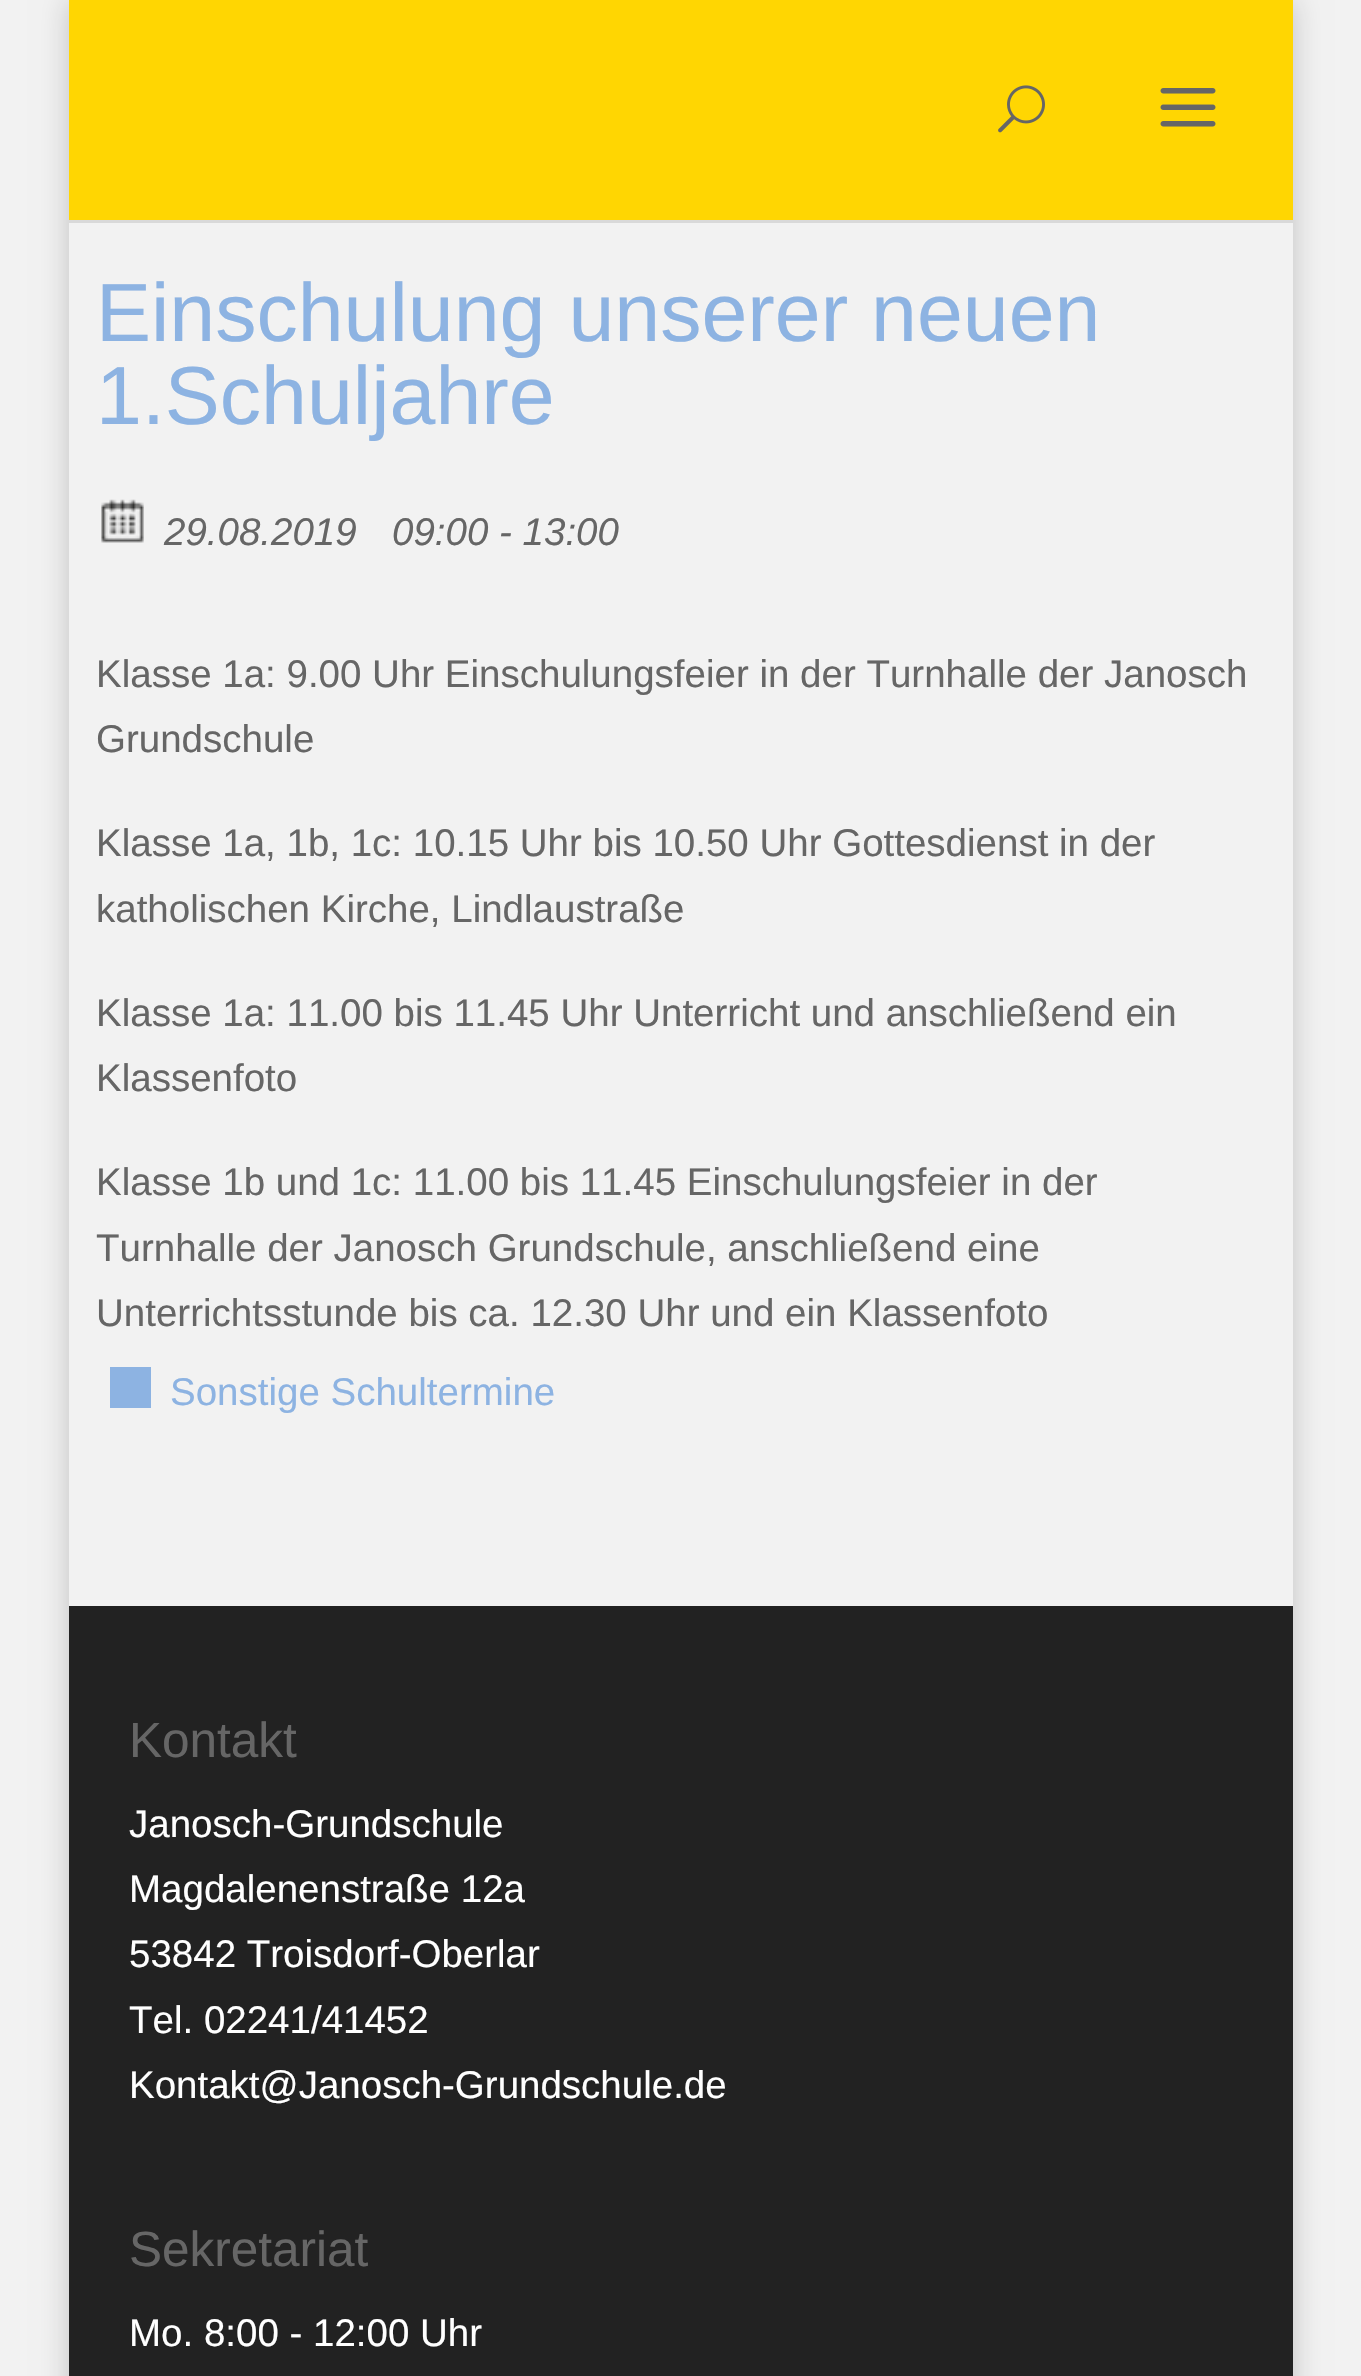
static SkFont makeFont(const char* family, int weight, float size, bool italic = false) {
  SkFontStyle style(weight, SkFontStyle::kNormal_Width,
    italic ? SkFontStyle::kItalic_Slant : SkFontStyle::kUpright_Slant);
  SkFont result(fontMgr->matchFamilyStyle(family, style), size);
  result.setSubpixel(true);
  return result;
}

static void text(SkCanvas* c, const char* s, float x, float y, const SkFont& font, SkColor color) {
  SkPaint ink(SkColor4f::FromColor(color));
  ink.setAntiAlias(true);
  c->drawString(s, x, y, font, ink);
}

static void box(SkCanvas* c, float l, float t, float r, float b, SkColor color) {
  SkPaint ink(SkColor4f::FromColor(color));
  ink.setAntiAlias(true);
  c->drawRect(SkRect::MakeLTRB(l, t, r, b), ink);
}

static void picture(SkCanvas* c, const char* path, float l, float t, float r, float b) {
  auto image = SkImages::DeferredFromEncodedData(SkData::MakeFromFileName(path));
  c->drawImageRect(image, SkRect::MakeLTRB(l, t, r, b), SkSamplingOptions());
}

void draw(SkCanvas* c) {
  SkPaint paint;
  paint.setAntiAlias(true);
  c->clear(0xfff2f2f2);
  c->save();
  c->clipPath(SkPathBuilder(SkPathFillType::kEvenOdd).moveTo(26, 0).lineTo(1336, 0).lineTo(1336, 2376).lineTo(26, 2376).close().moveTo(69, 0).lineTo(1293, 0).lineTo(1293, 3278).lineTo(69, 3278).close().detach(), true);
  paint.setColor(0x33000000);
  paint.setMaskFilter(SkMaskFilter::MakeBlur(kNormal_SkBlurStyle, 14));
  c->drawRect(SkRect::MakeLTRB(69, 0, 1293, 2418), paint);
  paint.setMaskFilter(nullptr);
  c->restore();
  paint.setColor(0x1a000000);
  c->drawPath(SkPathBuilder().moveTo(69, 220).lineTo(69, 223).lineTo(1293, 223).lineTo(1293, 3).lineTo(1292, 3).lineTo(1292, 220).close().detach(), paint);
  box(c, 69, 0, 1293, 220, 0xffffd602);
  picture(c, "img_01.png", 998, 85, 1045, 133);
  picture(c, "img_02.png", 1160, 88, 1216, 127);
  SkFont face1 = makeFont("Liberation Sans", 400, 82.5f);
  text(c, "Einschulung unserer neuen", 96, 341, face1, 0xff8db3e2);
  text(c, "1.Schuljahre", 96, 424, face1, 0xff8db3e2);
  picture(c, "img_03.png", 101, 499, 144, 543);
  SkFont face2 = makeFont("Liberation Sans", 400, 38.5f, true);
  text(c, "29.08.2019", 164, 545, face2, 0xff666666);
  text(c, "09:00 - 13:00", 392, 545, face2, 0xff666666);
  SkFont face3 = makeFont("Liberation Sans", 400, 38.5f);
  text(c, "Klasse 1a: 9.00 Uhr Einschulungsfeier in der Turnhalle der Janosch", 96, 687, face3, 0xff666666);
  text(c, "Grundschule", 96, 752, face3, 0xff666666);
  text(c, "Klasse 1a, 1b, 1c: 10.15 Uhr bis 10.50 Uhr Gottesdienst in der", 96, 856, face3, 0xff666666);
  text(c, "katholischen Kirche, Lindlaustraße", 96, 922, face3, 0xff666666);
  text(c, "Klasse 1a: 11.00 bis 11.45 Uhr Unterricht und anschließend ein", 96, 1026, face3, 0xff666666);
  text(c, "Klassenfoto", 96, 1091, face3, 0xff666666);
  text(c, "Klasse 1b und 1c: 11.00 bis 11.45 Einschulungsfeier in der", 96, 1195, face3, 0xff666666);
  text(c, "Turnhalle der Janosch Grundschule, anschließend eine", 96, 1261, face3, 0xff666666);
  text(c, "Unterrichtsstunde bis ca. 12.30 Uhr und ein Klassenfoto", 96, 1326, face3, 0xff666666);
  box(c, 110, 1367, 151, 1408, 0xff8db3e2);
  text(c, "Sonstige Schultermine", 170, 1405, face3, 0xff8db3e2);
  box(c, 69, 1606, 1293, 2376, 0xff222222);
  SkFont face4 = makeFont("Liberation Sans", 400, 49.5f);
  text(c, "Kontakt", 129, 1757, face4, 0xff666666);
  text(c, "Janosch-Grundschule", 129, 1837, face3, 0xffffffff);
  text(c, "Magdalenenstraße 12a", 129, 1902, face3, 0xffffffff);
  text(c, "53842 Troisdorf-Oberlar", 129, 1967, face3, 0xffffffff);
  text(c, "Tel. 02241/41452", 129, 2033, face3, 0xffffffff);
  text(c, "Kontakt@Janosch-Grundschule.de", 129, 2098, face3, 0xffffffff);
  text(c, "Sekretariat", 129, 2266, face4, 0xff666666);
  text(c, "Mo. 8:00 - 12:00 Uhr", 129, 2346, face3, 0xffffffff);
}
